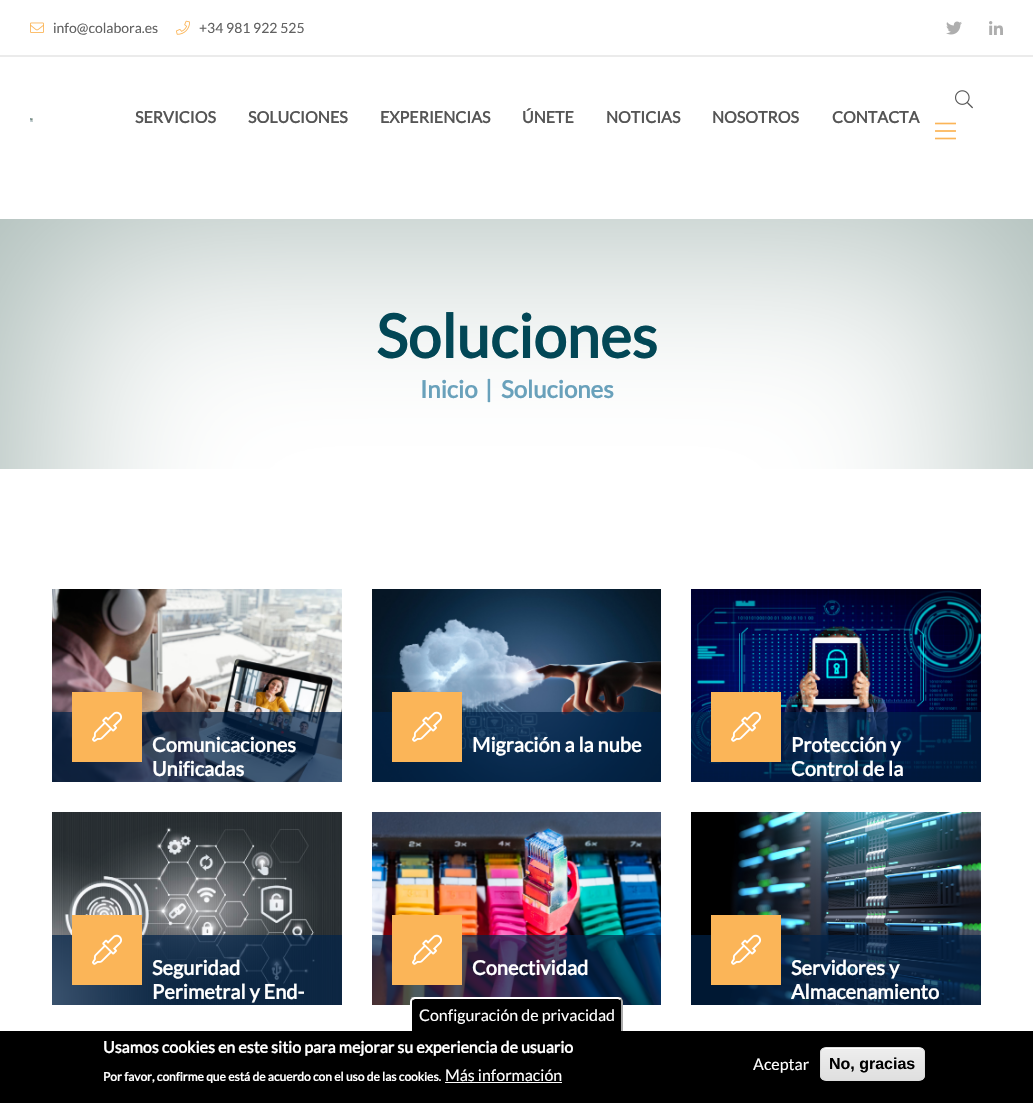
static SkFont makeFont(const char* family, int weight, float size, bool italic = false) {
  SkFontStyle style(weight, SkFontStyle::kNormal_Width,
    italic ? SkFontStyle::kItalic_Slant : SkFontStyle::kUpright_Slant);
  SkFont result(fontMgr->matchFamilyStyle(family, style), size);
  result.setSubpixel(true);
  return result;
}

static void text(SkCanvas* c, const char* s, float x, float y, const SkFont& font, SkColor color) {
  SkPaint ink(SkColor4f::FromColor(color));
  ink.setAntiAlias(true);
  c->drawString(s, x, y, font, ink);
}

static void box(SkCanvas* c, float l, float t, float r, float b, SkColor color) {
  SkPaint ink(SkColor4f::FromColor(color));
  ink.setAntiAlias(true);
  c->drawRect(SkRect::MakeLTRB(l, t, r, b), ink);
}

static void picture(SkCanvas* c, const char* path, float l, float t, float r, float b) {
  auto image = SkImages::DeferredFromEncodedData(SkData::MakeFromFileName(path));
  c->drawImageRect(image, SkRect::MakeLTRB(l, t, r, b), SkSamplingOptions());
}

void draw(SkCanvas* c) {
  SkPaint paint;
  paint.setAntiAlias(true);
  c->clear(0xffffffff);
  box(c, 0, 55, 1033, 57, 0xffebebeb);
  picture(c, "img_01.png", 30, 22, 44, 33);
  SkFont face1 = makeFont("Lato", 400, 14);
  text(c, "info@colabora.es", 53, 33, face1, 0xff616161);
  picture(c, "img_02.png", 176, 20, 190, 35);
  text(c, "+34 981 922 525", 199, 33, face1, 0xff616161);
  picture(c, "img_03.png", 946, 21, 962, 35);
  picture(c, "img_04.png", 989, 21, 1003, 35);
  picture(c, "img_05.png", 30, 118, 33, 122);
  SkFont face2 = makeFont("Lato", 700, 16);
  text(c, "SERVICIOS", 135, 123, face2, 0xff555555);
  text(c, "SOLUCIONES", 248, 123, face2, 0xff555555);
  text(c, "EXPERIENCIAS", 380, 123, face2, 0xff555555);
  text(c, "ÚNETE", 522, 123, face2, 0xff555555);
  text(c, "NOTICIAS", 606, 123, face2, 0xff555555);
  text(c, "NOSOTROS", 712, 123, face2, 0xff555555);
  text(c, "CONTACTA", 832, 123, face2, 0xff555555);
  picture(c, "img_06.png", 955, 90, 973, 109);
  picture(c, "img_07.png", 935, 122, 956, 140);
  box(c, 0, 219, 1033, 469, 0xffacbcb8);
  picture(c, "img_08.png", 0, 219, 1033, 469);
  SkFont face3 = makeFont("Lato", 700, 60);
  text(c, "Soluciones", 376, 358, face3, 0xff024756);
  SkFont face4 = makeFont("Lato", 700, 24);
  text(c, "Inicio", 420, 398, face4, 0xff69a1bb);
  text(c, "|", 485, 398, face4, 0xff69a1bb);
  text(c, "Soluciones", 501, 398, face4, 0xff69a1bb);
  picture(c, "img_09.png", 52, 589, 342, 782);
  box(c, 52, 712, 342, 782, 0xb3002249);
  box(c, 72, 692, 142, 762, 0xfffbb558);
  picture(c, "img_10.png", 92, 711, 122, 742);
  SkFont face5 = makeFont("Lato", 700, 20);
  text(c, "Comunicaciones", 152, 752, face5, 0xffffffff);
  text(c, "Unificadas", 152, 776, face5, 0xffffffff);
  picture(c, "img_11.png", 372, 589, 661, 782);
  box(c, 372, 712, 661, 782, 0xb3002249);
  box(c, 392, 692, 462, 762, 0xfffbb558);
  picture(c, "img_10.png", 412, 711, 442, 742);
  text(c, "Migración a la nube", 472, 752, face5, 0xffffffff);
  picture(c, "img_12.png", 691, 589, 981, 782);
  box(c, 691, 712, 981, 782, 0xb3002249);
  box(c, 711, 692, 781, 762, 0xfffbb558);
  picture(c, "img_10.png", 731, 711, 761, 742);
  text(c, "Protección y", 791, 752, face5, 0xffffffff);
  text(c, "Control de la", 791, 776, face5, 0xffffffff);
  picture(c, "img_13.png", 52, 812, 342, 1005);
  box(c, 52, 935, 342, 1005, 0xb3002249);
  box(c, 72, 915, 142, 985, 0xfffbb558);
  picture(c, "img_10.png", 92, 934, 122, 965);
  text(c, "Seguridad", 152, 975, face5, 0xffffffff);
  text(c, "Perimetral y End-", 152, 999, face5, 0xffffffff);
  picture(c, "img_14.png", 372, 812, 661, 1005);
  box(c, 372, 935, 661, 1005, 0xb3002249);
  box(c, 392, 915, 462, 985, 0xfffbb558);
  picture(c, "img_10.png", 412, 934, 442, 965);
  text(c, "Conectividad", 472, 975, face5, 0xffffffff);
  picture(c, "img_15.png", 691, 812, 981, 1005);
  box(c, 691, 935, 981, 1005, 0xb3002249);
  box(c, 711, 915, 781, 985, 0xfffbb558);
  picture(c, "img_10.png", 731, 934, 761, 965);
  text(c, "Servidores y", 791, 975, face5, 0xffffffff);
  text(c, "Almacenamiento", 791, 999, face5, 0xffffffff);
  box(c, 0, 1031, 1033, 1103, 0xff000000);
  paint.setColor(0xff000000);
  c->drawPath(SkPathBuilder().moveTo(415, 997).lineTo(618, 997).cubicTo(621, 997, 623, 999, 623, 1002).lineTo(623, 1031).lineTo(410, 1031).lineTo(410, 1002).cubicTo(410, 999, 412, 997, 415, 997).close().detach(), paint);
  paint.setColor(0xffffffff);
  c->drawPath(SkPathBuilder().moveTo(415, 997).cubicTo(414, 997, 412, 997, 411, 998).lineTo(413, 1000).lineTo(415, 999).lineTo(618, 999).lineTo(620, 1000).lineTo(622, 998).cubicTo(621, 998, 620, 997, 618, 997).close().detach(), paint);
  paint.setColor(0xffaaaaaa);
  c->drawPath(SkPathBuilder().moveTo(621, 1031).lineTo(623, 1031).lineTo(623, 1002).cubicTo(623, 1000.5f, 622.5f, 999.5f, 621.5f, 998.5f).lineTo(620.5f, 1000).cubicTo(621, 1000.5f, 621, 1001, 621, 1002).close().detach(), paint);
  paint.setColor(0xffffffff);
  c->drawPath(SkPathBuilder().moveTo(410, 1031).lineTo(410, 1001.5f).cubicTo(410, 1000.5f, 410.5f, 999, 411.5f, 998.5f).lineTo(413, 999.5f).cubicTo(412.5f, 1000, 412, 1001, 412, 1002).lineTo(412, 1031).close().detach(), paint);
  SkFont face6 = makeFont("Lato", 400, 16);
  text(c, "Configuración de privacidad", 419, 1021, face6, 0xffffffff);
  text(c, "Usamos cookies en este sitio para mejorar su experiencia de usuario", 103, 1053, face2, 0xffffffff);
  SkFont face7 = makeFont("Lato", 700, 12);
  text(c, "Por favor, confirme que está de acuerdo con el uso de las cookies.", 103, 1081, face7, 0xffffffff);
  text(c, "Más información", 445, 1081, face6, 0xffffffff);
  box(c, 445, 1082, 562, 1083, 0xffffffff);
  text(c, "Aceptar", 753, 1070, face6, 0xffffffff);
  c->save();
  c->clipPath(SkPathBuilder().moveTo(826, 1047).lineTo(919, 1047).cubicTo(922.5f, 1047, 925, 1049.5f, 925, 1053).lineTo(925, 1075).cubicTo(925, 1078.5f, 922.5f, 1081, 919, 1081).lineTo(826, 1081).cubicTo(822.5f, 1081, 820, 1078.5f, 820, 1075).lineTo(820, 1053).cubicTo(820, 1049.5f, 822.5f, 1047, 826, 1047).close().detach(), true);
  {
    const SkColor colors[] = {0xffededed, 0xffdfdfdf};
    const float stops[] = {0.05f, 1};
    const SkPoint ends[] = {{873, 1048}, {873, 1080}};
    paint.setShader(SkGradientShader::MakeLinear(ends, colors, stops, 2, SkTileMode::kClamp));
    paint.setAlpha(255);
  }
  c->drawRect(SkRect::MakeLTRB(820, 1048, 925, 1080), paint);
  c->restore();
  paint.setShader(nullptr);
  paint.setColor(0xffffffff);
  c->drawPath(SkPathBuilder().moveTo(826, 1049).lineTo(919, 1049).cubicTo(922, 1049, 924, 1051, 924, 1054).cubicTo(924, 1044, 909, 1048, 904, 1048).lineTo(842, 1048).cubicTo(836, 1048, 821, 1044, 821, 1054).cubicTo(821, 1051, 823, 1049, 826, 1049).close().detach(), paint);
  paint.setStyle(SkPaint::kStroke_Style);
  paint.setStrokeWidth(1);
  paint.setColor(0xffdcdcdc);
  c->drawRoundRect(SkRect::MakeLTRB(820.5f, 1047.5f, 924.5f, 1080.5f), 5.5f, 5.5f, paint);
  SkFont face8 = makeFont("Liberation Sans", 700, 16);
  text(c, "No, gracias", 829, 1069, face8, 0xff000000);
}
